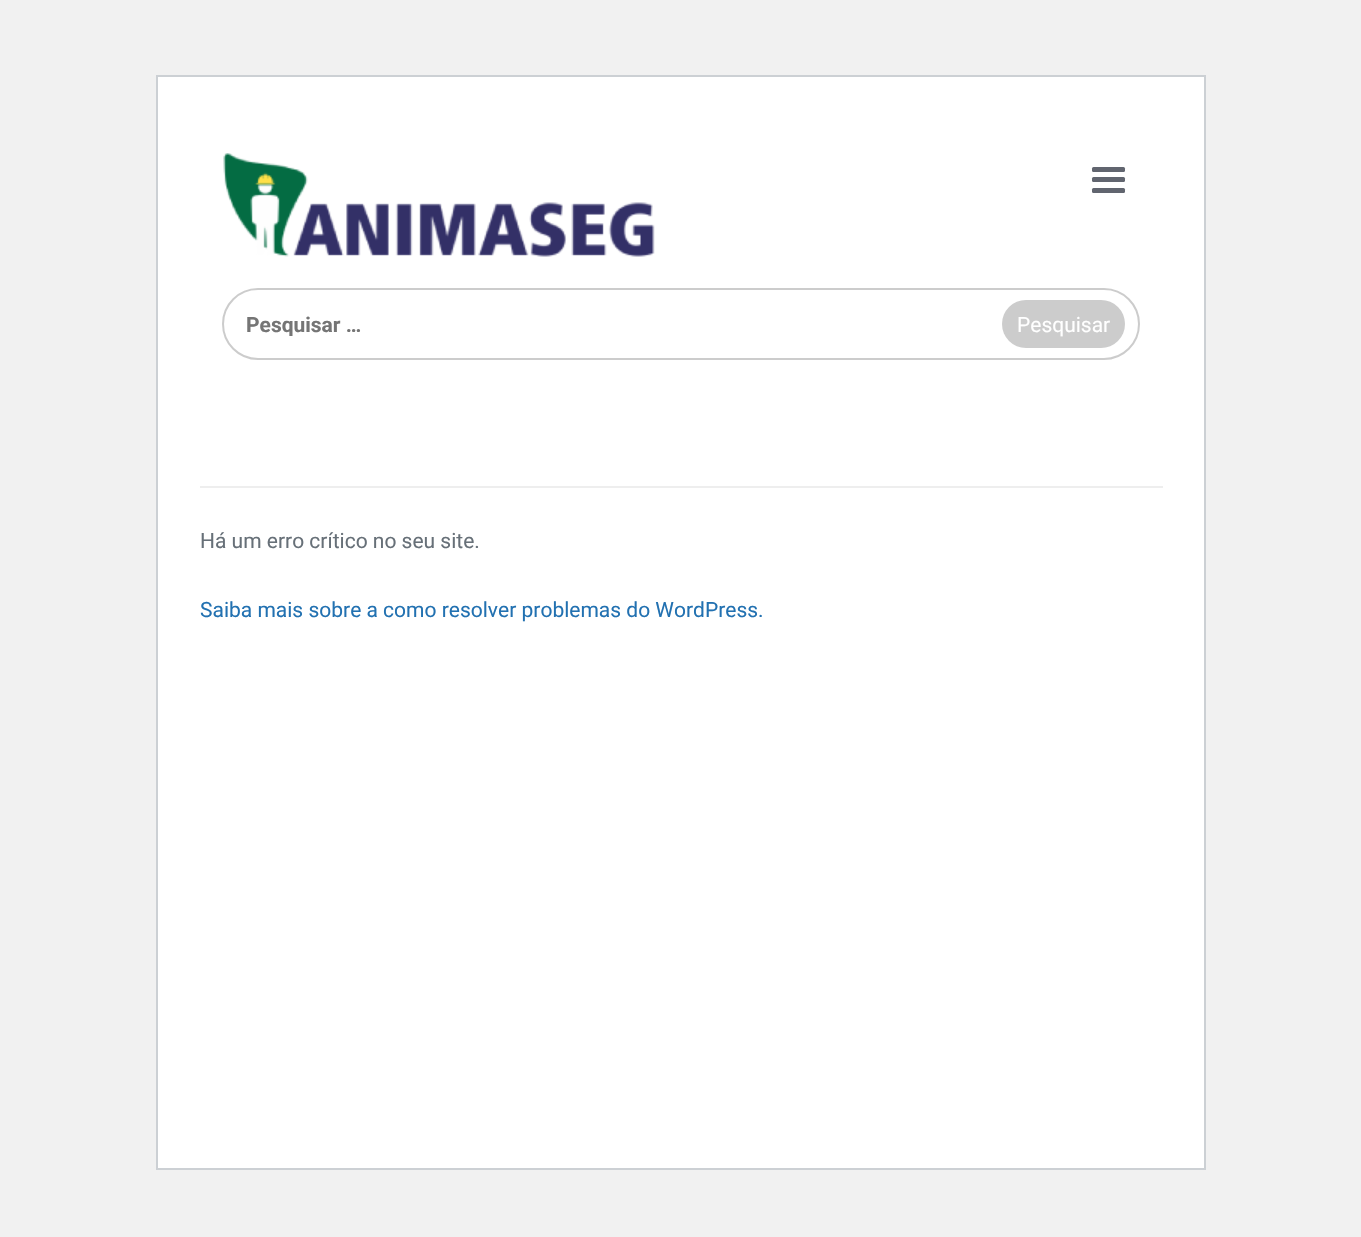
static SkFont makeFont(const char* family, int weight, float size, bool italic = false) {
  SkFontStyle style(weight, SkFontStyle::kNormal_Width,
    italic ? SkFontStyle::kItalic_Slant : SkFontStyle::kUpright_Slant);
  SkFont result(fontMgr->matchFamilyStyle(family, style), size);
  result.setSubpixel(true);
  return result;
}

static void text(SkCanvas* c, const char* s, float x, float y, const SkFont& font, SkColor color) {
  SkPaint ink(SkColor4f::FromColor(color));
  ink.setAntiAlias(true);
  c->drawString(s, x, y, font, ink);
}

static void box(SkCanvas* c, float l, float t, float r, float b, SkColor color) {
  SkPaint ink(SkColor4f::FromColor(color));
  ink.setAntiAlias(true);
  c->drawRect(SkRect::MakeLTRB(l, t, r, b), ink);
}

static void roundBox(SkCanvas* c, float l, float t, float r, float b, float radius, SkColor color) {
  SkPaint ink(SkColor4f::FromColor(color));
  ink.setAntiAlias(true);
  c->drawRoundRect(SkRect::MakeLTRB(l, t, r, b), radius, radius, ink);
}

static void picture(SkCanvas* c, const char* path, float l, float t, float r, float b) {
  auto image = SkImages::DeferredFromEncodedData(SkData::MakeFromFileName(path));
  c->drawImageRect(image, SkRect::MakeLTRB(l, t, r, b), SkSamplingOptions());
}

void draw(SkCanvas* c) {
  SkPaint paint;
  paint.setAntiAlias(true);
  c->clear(0xfff1f1f1);
  paint.setColor(0xffffffff);
  c->drawRect(SkRect::MakeLTRB(157, 76, 1205, 1169), paint);
  paint.setStyle(SkPaint::kStroke_Style);
  paint.setStrokeWidth(2);
  paint.setColor(0xffccd0d4);
  c->drawRect(SkRect::MakeLTRB(157, 76, 1205, 1169), paint);
  picture(c, "img_01.png", 223, 153, 655, 257);
  roundBox(c, 1092, 167, 1125, 172, 1.5f, 0xff61656f);
  roundBox(c, 1092, 177, 1125, 182, 1.5f, 0xff61656f);
  roundBox(c, 1092, 188, 1125, 193, 1.5f, 0xff61656f);
  paint.setColor(0xffcccccc);
  c->drawRoundRect(SkRect::MakeLTRB(223, 289, 1139, 359), 35, 35, paint);
  c->save();
  c->clipRect(SkRect::MakeLTRB(246, 312, 1110, 336));
  SkFont face1 = makeFont("Roboto", 700, 21);
  text(c, "Pesquisar …", 246, 332, face1, 0xff757575);
  c->restore();
  roundBox(c, 1002, 300, 1125, 348, 24, 0xffcccccc);
  SkFont face2 = makeFont("Roboto", 400, 21);
  text(c, "Pesquisar", 1017, 332, face2, 0xffffffff);
  box(c, 200, 486, 1163, 488, 0xffeeeeee);
  text(c, "Há um erro crítico no seu site.", 200, 548, face2, 0xff677078);
  text(c, "Saiba mais sobre a como resolver problemas do WordPress.", 200, 617, face2, 0xff2271b1);
}
